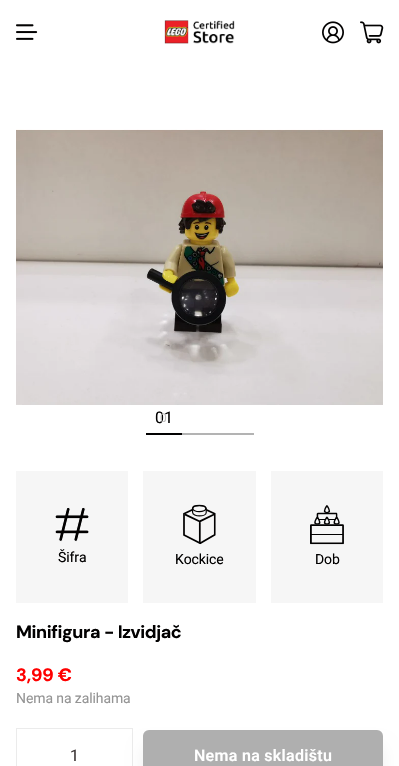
static SkFont makeFont(const char* family, int weight, float size, bool italic = false) {
  SkFontStyle style(weight, SkFontStyle::kNormal_Width,
    italic ? SkFontStyle::kItalic_Slant : SkFontStyle::kUpright_Slant);
  SkFont result(fontMgr->matchFamilyStyle(family, style), size);
  result.setSubpixel(true);
  return result;
}

static void text(SkCanvas* c, const char* s, float x, float y, const SkFont& font, SkColor color) {
  SkPaint ink(SkColor4f::FromColor(color));
  ink.setAntiAlias(true);
  c->drawString(s, x, y, font, ink);
}

static void spacedText(SkCanvas* c, const char* s, float x, float y, const SkFont& font, const SkPaint& ink, float letter, float word) {
  std::vector<SkGlyphID> glyphs(font.countText(s, strlen(s), SkTextEncoding::kUTF8));
  std::vector<float> xs(glyphs.size());
  font.textToGlyphs(s, strlen(s), SkTextEncoding::kUTF8, glyphs);
  font.getXPos(glyphs, xs, x);
  float extra = 0;
  for (size_t i = 0; i < glyphs.size(); i++) {
    xs[i] += extra;
    extra += letter + word * (glyphs[i] == font.unicharToGlyph(' '));
  }
  c->drawTextBlob(SkTextBlob::MakeFromPosHGlyphs(glyphs, xs, y, font), 0, 0, ink);
}

static void box(SkCanvas* c, float l, float t, float r, float b, SkColor color) {
  SkPaint ink(SkColor4f::FromColor(color));
  ink.setAntiAlias(true);
  c->drawRect(SkRect::MakeLTRB(l, t, r, b), ink);
}

static void picture(SkCanvas* c, const char* path, float l, float t, float r, float b) {
  auto image = SkImages::DeferredFromEncodedData(SkData::MakeFromFileName(path));
  c->drawImageRect(image, SkRect::MakeLTRB(l, t, r, b), SkSamplingOptions());
}

void draw(SkCanvas* c) {
  SkPaint paint;
  paint.setAntiAlias(true);
  c->clear(0xffffffff);
  picture(c, "img_01.png", 16, 24, 38, 40);
  picture(c, "img_02.png", 164, 20, 235, 44);
  picture(c, "img_03.png", 322, 21, 344, 44);
  picture(c, "img_04.png", 360, 21, 384, 44);
  picture(c, "img_05.png", 16, 129, 383, 405);
  SkFont face1 = makeFont("Roboto", 400, 16);
  paint.setColor(0xff020101);
  spacedText(c, "01", 155, 423, face1, paint, -0.1f, 0);
  SkFont face2 = makeFont("Roboto", 400, 12);
  text(c, "0", 160, 422, face2, 0xffbebdbd);
  box(c, 146, 433, 182, 435, 0xff020101);
  box(c, 182, 433, 254, 435, 0xffb3b3b3);
  box(c, 16, 471, 128, 603, 0xfff6f6f6);
  picture(c, "img_06.png", 55, 507, 89, 542);
  SkFont face3 = makeFont("Roboto", 400, 14);
  spacedText(c, "Šifra", 58, 562, face3, paint, -0.1f, 0);
  box(c, 143, 471, 256, 603, 0xfff6f6f6);
  picture(c, "img_07.png", 183, 504, 216, 545);
  spacedText(c, "Kockice", 175, 564, face3, paint, -0.1f, 0);
  box(c, 271, 471, 383, 603, 0xfff6f6f6);
  picture(c, "img_08.png", 310, 505, 344, 545);
  spacedText(c, "Dob", 315, 564, face3, paint, -0.1f, 0);
  SkFont face4 = makeFont("DM Sans", 700, 18);
  spacedText(c, "Minifigura - Izvidjač", 16, 638, face4, paint, -0.4f, 0);
  paint.setColor(0xffff0000);
  spacedText(c, "3,99 €", 16, 681, face4, paint, -0.1f, 0);
  paint.setColor(0xff949494);
  spacedText(c, "Nema na zalihama", 16, 703, face3, paint, -0.1f, 0);
  paint.setStyle(SkPaint::kStroke_Style);
  paint.setStrokeWidth(1);
  paint.setColor(0xffebebeb);
  c->drawRect(SkRect::MakeLTRB(16.5f, 728.5f, 132.5f, 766.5f), paint);
  text(c, "1", 70, 761, face1, 0xff3e3737);
  paint.setStyle(SkPaint::kFill_Style);
  paint.setColor(0x0f000000);
  paint.setMaskFilter(SkMaskFilter::MakeBlur(kNormal_SkBlurStyle, 8));
  c->drawRoundRect(SkRect::MakeLTRB(143, 746, 383, 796), 6, 6, paint);
  paint.setMaskFilter(nullptr);
  paint.setColor(0xffafafaf);
  c->drawRoundRect(SkRect::MakeLTRB(144, 731, 382, 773), 5, 5, paint);
  paint.setStyle(SkPaint::kStroke_Style);
  paint.setStrokeWidth(2);
  c->drawRoundRect(SkRect::MakeLTRB(144, 731, 382, 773), 5, 5, paint);
  SkFont face5 = makeFont("Roboto", 600, 16);
  paint.setStyle(SkPaint::kFill_Style);
  paint.setColor(0xffffffff);
  spacedText(c, "Nema na skladištu", 194, 761, face5, paint, 0.3f, 0);
}
